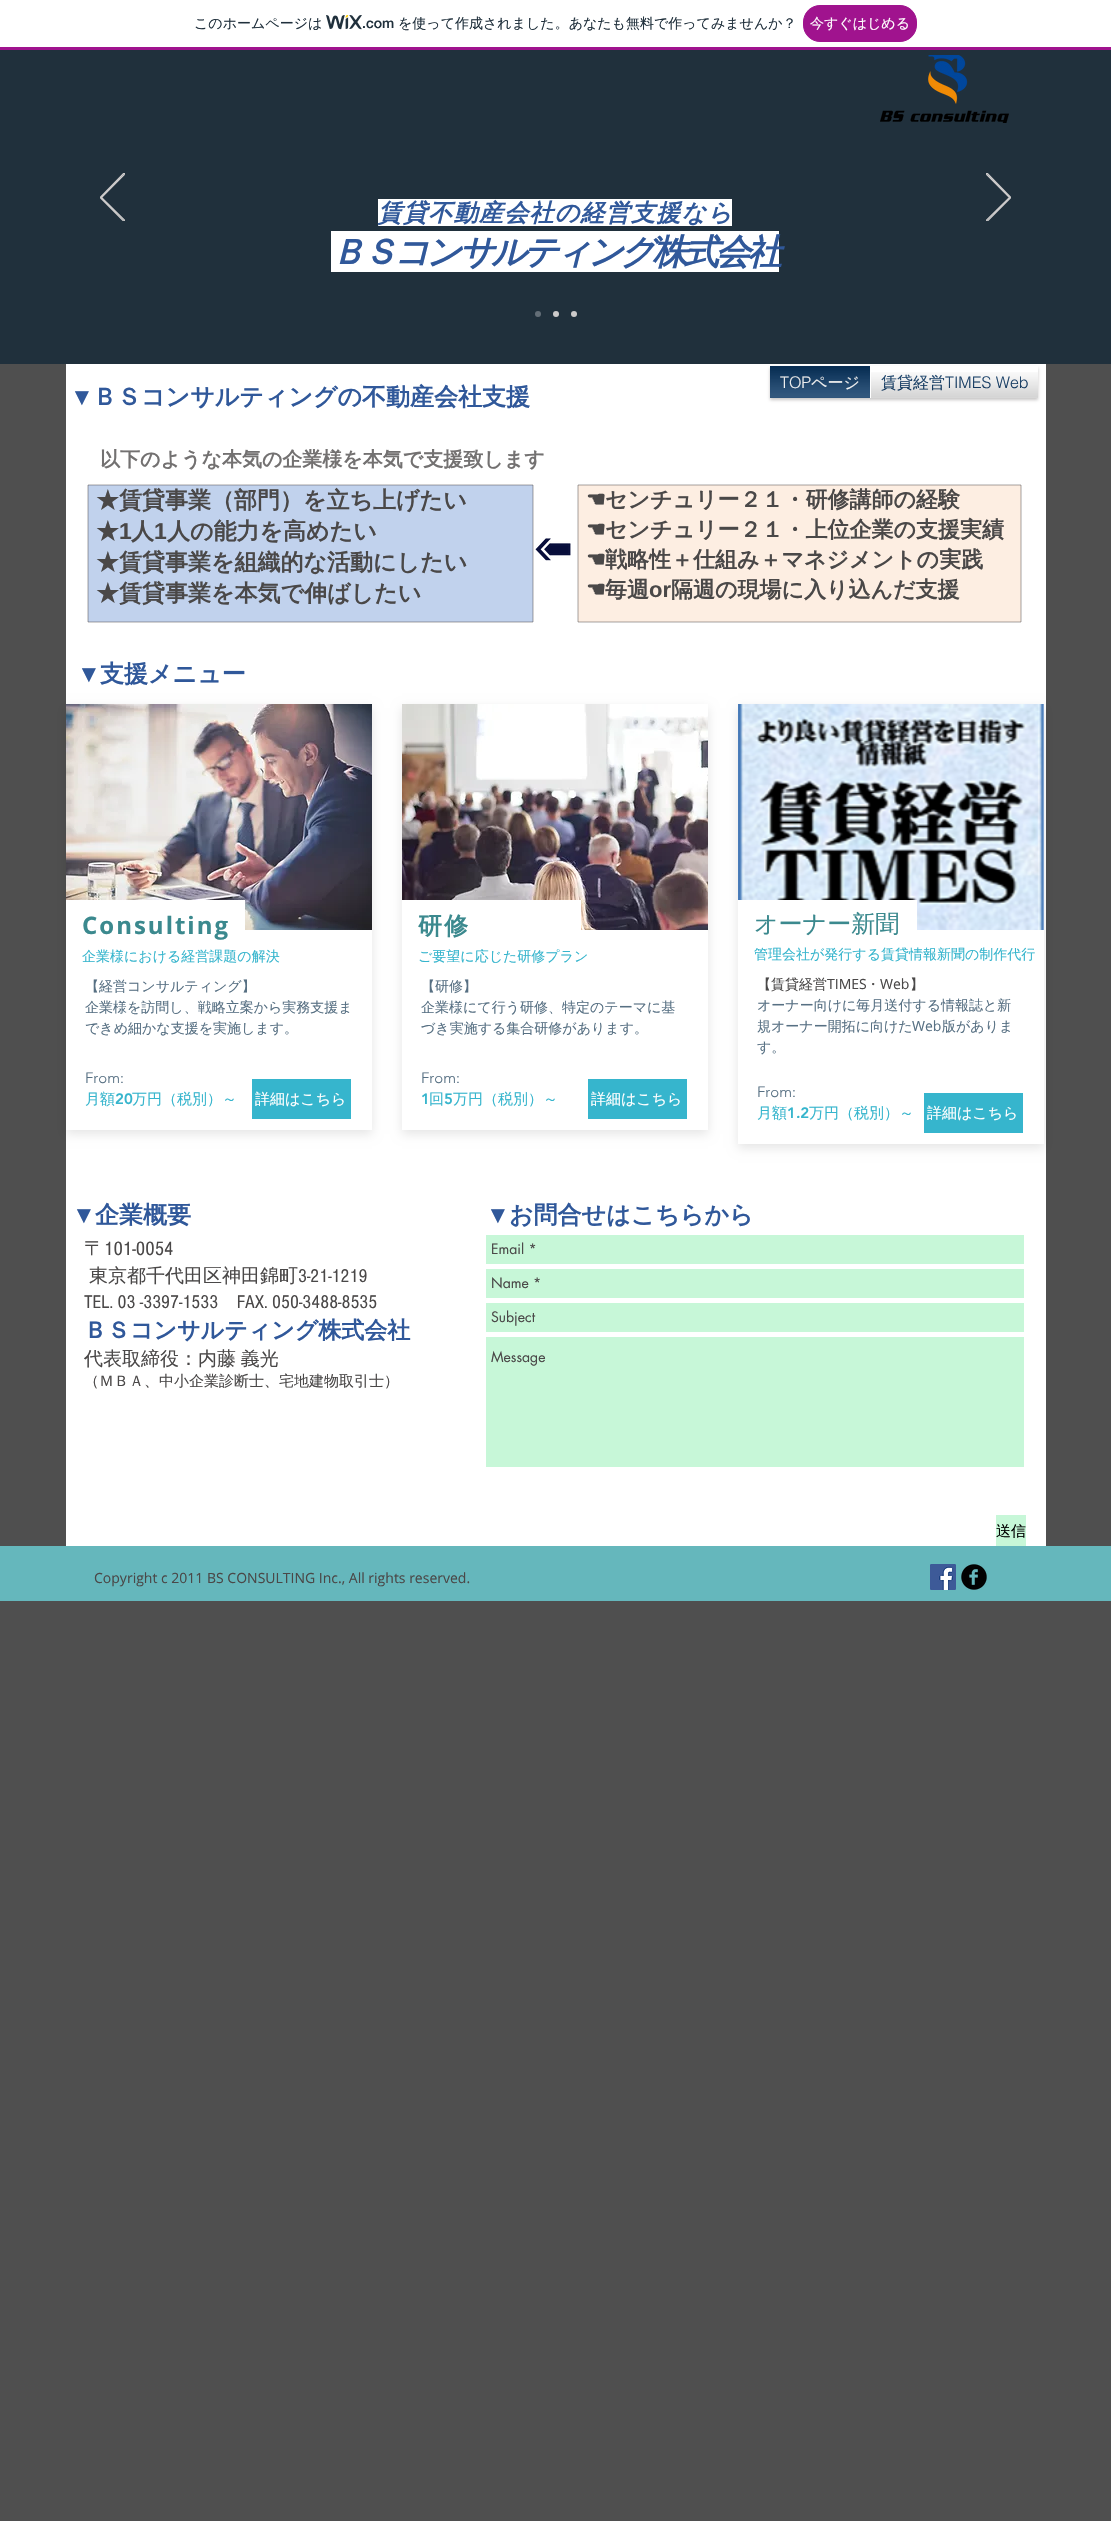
static SkFont makeFont(const char* family, int weight, float size, bool italic = false) {
  SkFontStyle style(weight, SkFontStyle::kNormal_Width,
    italic ? SkFontStyle::kItalic_Slant : SkFontStyle::kUpright_Slant);
  SkFont result(fontMgr->matchFamilyStyle(family, style), size);
  result.setSubpixel(true);
  return result;
}

static void text(SkCanvas* c, const char* s, float x, float y, const SkFont& font, SkColor color) {
  SkPaint ink(SkColor4f::FromColor(color));
  ink.setAntiAlias(true);
  c->drawString(s, x, y, font, ink);
}

static void spacedText(SkCanvas* c, const char* s, float x, float y, const SkFont& font, const SkPaint& ink, float letter, float word) {
  std::vector<SkGlyphID> glyphs(font.countText(s, strlen(s), SkTextEncoding::kUTF8));
  std::vector<float> xs(glyphs.size());
  font.textToGlyphs(s, strlen(s), SkTextEncoding::kUTF8, glyphs);
  font.getXPos(glyphs, xs, x);
  float extra = 0;
  for (size_t i = 0; i < glyphs.size(); i++) {
    xs[i] += extra;
    extra += letter + word * (glyphs[i] == font.unicharToGlyph(' '));
  }
  c->drawTextBlob(SkTextBlob::MakeFromPosHGlyphs(glyphs, xs, y, font), 0, 0, ink);
}

static void box(SkCanvas* c, float l, float t, float r, float b, SkColor color) {
  SkPaint ink(SkColor4f::FromColor(color));
  ink.setAntiAlias(true);
  c->drawRect(SkRect::MakeLTRB(l, t, r, b), ink);
}

static void picture(SkCanvas* c, const char* path, float l, float t, float r, float b) {
  auto image = SkImages::DeferredFromEncodedData(SkData::MakeFromFileName(path));
  c->drawImageRect(image, SkRect::MakeLTRB(l, t, r, b), SkSamplingOptions());
}

void draw(SkCanvas* c) {
  SkPaint paint;
  paint.setAntiAlias(true);
  c->clear(0xff4f4f4f);
  box(c, 0, 0, 1111, 47, 0xffffffff);
  box(c, 0, 47, 1111, 50, 0xffa0138e);
  SkFont face1 = makeFont("WenQuanYi Zen Hei", 500, 14);
  text(c, "このホームページは", 194, 28, face1, 0xff20303c);
  picture(c, "img_01.png", 326, 15, 362, 30);
  SkFont face2 = makeFont("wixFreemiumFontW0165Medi", 500, 14);
  text(c, ".com", 362, 28, face2, 0xff20303c);
  text(c, "を使って作成されました。あなたも無料で作ってみませんか？", 398, 28, face1, 0xff20303c);
  paint.setColor(0xffa0138e);
  c->drawRoundRect(SkRect::MakeLTRB(803.5f, 5.5f, 916.5f, 41.5f), 16.5f, 16.5f, paint);
  paint.setStyle(SkPaint::kStroke_Style);
  paint.setStrokeWidth(1);
  c->drawRoundRect(SkRect::MakeLTRB(803.5f, 5.5f, 916.5f, 41.5f), 16.5f, 16.5f, paint);
  text(c, "今すぐはじめる", 810, 28, face1, 0xffffffff);
  box(c, 0, 50, 1111, 364, 0xff20303c);
  c->save();
  c->clipRect(SkRect::MakeLTRB(100, 173, 125, 221));
  paint.setStrokeWidth(1.2f);
  paint.setColor(0xffcccaca);
  c->drawPath(SkPathBuilder().moveTo(124, 221.5f).lineTo(100, 197.5f).lineTo(124, 173).lineTo(125, 174).lineTo(101.5f, 197.5f).lineTo(125, 220.5f).close().detach(), paint);
  c->restore();
  picture(c, "img_02.png", 880, 55, 1009, 123);
  box(c, 378, 199, 732, 226, 0xffffffff);
  SkFont face3 = makeFont("WenQuanYi Zen Hei", 700, 24, true);
  paint.setStyle(SkPaint::kFill_Style);
  paint.setColor(0xff30589a);
  spacedText(c, "賃貸不動産会社の経営支援なら", 378, 221, face3, paint, 1.25f, 0);
  box(c, 331, 231, 779, 272, 0xffffffff);
  SkFont face4 = makeFont("WenQuanYi Zen Hei", 700, 35, true);
  spacedText(c, "ＢＳコンサルティング株式会社", 331, 264, face4, paint, -3.5f, 0);
  c->save();
  c->clipRect(SkRect::MakeLTRB(986, 173, 1011, 221));
  paint.setStyle(SkPaint::kStroke_Style);
  paint.setColor(0xffcccaca);
  c->drawPath(SkPathBuilder().moveTo(987, 221.5f).lineTo(1011, 197.5f).lineTo(987, 173).lineTo(986, 174).lineTo(1009.5f, 197.5f).lineTo(986, 220.5f).close().detach(), paint);
  c->restore();
  paint.setStyle(SkPaint::kFill_Style);
  paint.setColor(0xff636e77);
  c->drawCircle(538, 314, 3, paint);
  paint.setColor(0xffcccaca);
  c->drawCircle(556, 314, 3, paint);
  c->drawCircle(574, 314, 3, paint);
  box(c, 66, 364, 1046, 1546, 0xffffffff);
  SkFont face5 = makeFont("Liberation Sans", 400, 24);
  text(c, "▼", 70, 405, face5, 0xff30589a);
  SkFont face6 = makeFont("WenQuanYi Zen Hei", 700, 24);
  text(c, "ＢＳコンサルティングの不動産会社支援", 93, 405, face6, 0xff30589a);
  paint.setColor(0x99a29e9e);
  paint.setMaskFilter(SkMaskFilter::MakeBlur(kNormal_SkBlurStyle, 1.5f));
  c->drawRect(SkRect::MakeLTRB(770, 368, 1038, 400), paint);
  paint.setMaskFilter(nullptr);
  box(c, 770, 366, 870, 398, 0xff002e5d);
  SkFont face7 = makeFont("helvetica", 300, 16);
  text(c, "TOP", 780, 388, face7, 0xffffffff);
  SkFont face8 = makeFont("WenQuanYi Zen Hei", 500, 16);
  text(c, "ページ", 811, 388, face8, 0xffffffff);
  picture(c, "img_03.png", 770, 366, 870, 390);
  picture(c, "img_04.png", 770, 366, 870, 398);
  box(c, 870, 366, 1038, 398, 0xffffffff);
  text(c, "賃貸経営", 881, 388, face8, 0xff002e5d);
  text(c, "TIMES Web", 945, 388, face7, 0xff002e5d);
  picture(c, "img_05.png", 881, 374, 1027, 391);
  picture(c, "img_06.png", 871, 372, 1038, 398);
  SkFont face9 = makeFont("WenQuanYi Zen Hei", 700, 20);
  text(c, "以下のような本気の企業様を本気で支援致します", 100, 466, face9, 0xff737171);
  box(c, 88, 485, 533, 622, 0xffc1d2ed);
  paint.setStyle(SkPaint::kStroke_Style);
  paint.setStrokeWidth(1);
  paint.setColor(0x804a4848);
  c->drawPath(SkPathBuilder().moveTo(533, 485).lineTo(533, 622).lineTo(88, 622).lineTo(88, 485).close().detach(), paint);
  box(c, 578, 485, 1021, 622, 0xfffdeee2);
  c->drawPath(SkPathBuilder().moveTo(1021, 485).lineTo(1021, 622).lineTo(578, 622).lineTo(578, 485).close().detach(), paint);
  SkFont face10 = makeFont("WenQuanYi Zen Hei", 700, 23);
  text(c, "★賃貸事業（部門）を立ち上げたい", 96, 508, face10, 0xff4a4848);
  text(c, "★", 96, 539, face10, 0xff4a4848);
  SkFont face11 = makeFont("Liberation Sans", 700, 23);
  text(c, "1", 119, 539, face11, 0xff4a4848);
  text(c, "人", 131, 539, face10, 0xff4a4848);
  text(c, "1", 154, 539, face11, 0xff4a4848);
  text(c, "人の能力を高めたい", 167, 539, face10, 0xff4a4848);
  text(c, "★賃貸事業を組織的な活動にしたい", 96, 570, face10, 0xff4a4848);
  text(c, "★賃貸事業を本気で伸ばしたい", 96, 601, face10, 0xff4a4848);
  picture(c, "img_07.png", 535, 538, 571, 561);
  SkFont face12 = makeFont("DejaVu Sans", 700, 22);
  text(c, "☚", 586, 507, face12, 0xff4a4848);
  SkFont face13 = makeFont("WenQuanYi Zen Hei", 700, 22);
  text(c, "センチュリー２１・研修講師の経験", 605, 507, face13, 0xff4a4848);
  text(c, "☚", 586, 537, face12, 0xff4a4848);
  text(c, "センチュリー２１・上位企業の支援実績", 605, 537, face13, 0xff4a4848);
  text(c, "☚", 586, 567, face12, 0xff4a4848);
  text(c, "戦略性＋仕組み＋マネジメントの実践", 605, 567, face13, 0xff4a4848);
  text(c, "☚", 586, 597, face12, 0xff4a4848);
  text(c, "毎週", 605, 597, face13, 0xff4a4848);
  SkFont face14 = makeFont("Liberation Sans", 700, 22);
  text(c, "or", 649, 597, face14, 0xff4a4848);
  text(c, "隔週の現場に入り込んだ支援", 671, 597, face13, 0xff4a4848);
  text(c, "▼", 77, 682, face5, 0xff30589a);
  text(c, "支援メニュー", 100, 682, face6, 0xff30589a);
  c->save();
  c->clipPath(SkPathBuilder(SkPathFillType::kEvenOdd).moveTo(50, 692).lineTo(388, 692).lineTo(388, 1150).lineTo(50, 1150).close().moveTo(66, 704).lineTo(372, 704).lineTo(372, 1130).lineTo(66, 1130).close().detach(), true);
  paint.setStyle(SkPaint::kFill_Style);
  paint.setColor(0x1a000000);
  paint.setMaskFilter(SkMaskFilter::MakeBlur(kNormal_SkBlurStyle, 5));
  c->drawRect(SkRect::MakeLTRB(66, 708, 372, 1134), paint);
  paint.setMaskFilter(nullptr);
  c->restore();
  picture(c, "img_08.png", 66, 704, 372, 930);
  box(c, 66, 900, 245, 930, 0xffffffff);
  SkFont face15 = makeFont("Open Sans", 700, 24);
  paint.setColor(0xff3b898e);
  spacedText(c, "Consulting", 82, 934, face15, paint, 2, 0);
  text(c, "企業様における経営課題の解決", 82, 961, face1, 0xff36b5cd);
  text(c, "【経営コンサルティング】", 85, 991, face1, 0xff577083);
  text(c, "企業様を訪問し、戦略立案から実務支援ま", 85, 1012, face1, 0xff577083);
  text(c, "できめ細かな支援を実施します。", 85, 1033, face1, 0xff577083);
  SkFont face16 = makeFont("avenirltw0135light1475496", 300, 15);
  text(c, "From:", 85, 1083, face16, 0xff577083);
  SkFont face17 = makeFont("WenQuanYi Zen Hei", 500, 15);
  text(c, "月額", 85, 1104, face17, 0xff36b5cd);
  SkFont face18 = makeFont("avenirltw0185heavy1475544", 900, 15);
  text(c, "20", 115, 1104, face18, 0xff36b5cd);
  text(c, "万円（税別）～", 132, 1104, face17, 0xff36b5cd);
  box(c, 252, 1079, 351, 1119, 0xff36b5cd);
  text(c, "詳細はこちら", 255, 1104, face17, 0xffffffff);
  c->save();
  c->clipPath(SkPathBuilder(SkPathFillType::kEvenOdd).moveTo(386, 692).lineTo(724, 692).lineTo(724, 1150).lineTo(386, 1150).close().moveTo(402, 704).lineTo(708, 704).lineTo(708, 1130).lineTo(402, 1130).close().detach(), true);
  paint.setColor(0x1a000000);
  paint.setMaskFilter(SkMaskFilter::MakeBlur(kNormal_SkBlurStyle, 5));
  c->drawRect(SkRect::MakeLTRB(402, 708, 708, 1134), paint);
  paint.setMaskFilter(nullptr);
  c->restore();
  picture(c, "img_09.png", 402, 704, 708, 930);
  box(c, 402, 900, 581, 930, 0xffffffff);
  paint.setColor(0xff3b898e);
  spacedText(c, "研修", 418, 934, face6, paint, 2, 0);
  text(c, "ご要望に応じた研修プラン", 418, 961, face1, 0xff36b5cd);
  text(c, "【研修】", 421, 991, face1, 0xff577083);
  text(c, "企業様にて行う研修、特定のテーマに基", 421, 1012, face1, 0xff577083);
  text(c, "づき実施する集合研修があります。", 421, 1033, face1, 0xff577083);
  text(c, "From:", 421, 1083, face16, 0xff577083);
  text(c, "1", 421, 1104, face18, 0xff36b5cd);
  text(c, "回", 429, 1104, face17, 0xff36b5cd);
  text(c, "5", 444, 1104, face18, 0xff36b5cd);
  text(c, "万円（税別）～", 453, 1104, face17, 0xff36b5cd);
  box(c, 588, 1079, 687, 1119, 0xff36b5cd);
  text(c, "詳細はこちら", 591, 1104, face17, 0xffffffff);
  c->save();
  c->clipPath(SkPathBuilder(SkPathFillType::kEvenOdd).moveTo(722, 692).lineTo(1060, 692).lineTo(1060, 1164).lineTo(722, 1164).close().moveTo(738, 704).lineTo(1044, 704).lineTo(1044, 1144).lineTo(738, 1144).close().detach(), true);
  paint.setColor(0x1a000000);
  paint.setMaskFilter(SkMaskFilter::MakeBlur(kNormal_SkBlurStyle, 5));
  c->drawRect(SkRect::MakeLTRB(738, 708, 1044, 1148), paint);
  paint.setMaskFilter(nullptr);
  c->restore();
  picture(c, "img_10.png", 738, 704, 1044, 930);
  box(c, 738, 900, 917, 930, 0xffffffff);
  SkFont face19 = makeFont("WenQuanYi Zen Hei", 500, 24);
  text(c, "オーナー新聞", 754, 932, face19, 0xff3b898e);
  text(c, "管理会社が発行する賃貸情報新聞の制作代行", 754, 959, face1, 0xff36b5cd);
  text(c, "【賃貸経営", 757, 989, face1, 0xff4a4848);
  SkFont face20 = makeFont("Open Sans", 400, 14);
  text(c, "TIMES", 827, 989, face20, 0xff4a4848);
  text(c, "・", 866, 989, face1, 0xff4a4848);
  text(c, "Web", 880, 989, face20, 0xff4a4848);
  text(c, "】", 910, 989, face1, 0xff4a4848);
  text(c, "オーナー向けに毎月送付する情報誌と新", 757, 1010, face1, 0xff577083);
  text(c, "規オーナー開拓に向けた", 757, 1031, face1, 0xff577083);
  text(c, "Web", 912, 1031, face20, 0xff577083);
  text(c, "版がありま", 942, 1031, face1, 0xff577083);
  text(c, "す。", 757, 1052, face1, 0xff577083);
  text(c, "From:", 757, 1097, face16, 0xff577083);
  text(c, "月額", 757, 1118, face17, 0xff36b5cd);
  text(c, "1.2", 787, 1118, face18, 0xff36b5cd);
  text(c, "万円（税別）～", 809, 1118, face17, 0xff36b5cd);
  box(c, 924, 1093, 1023, 1133, 0xff36b5cd);
  text(c, "詳細はこちら", 927, 1118, face17, 0xffffffff);
  text(c, "▼", 72, 1223, face5, 0xff30589a);
  text(c, "企業概要", 95, 1223, face6, 0xff30589a);
  text(c, "▼", 486, 1223, face5, 0xff30589a);
  text(c, "お問合せはこちらから", 509, 1223, face6, 0xff30589a);
  SkFont face21 = makeFont("WenQuanYi Zen Hei", 500, 20);
  text(c, "〒", 84, 1255, face21, 0xff4a4848);
  SkFont face22 = makeFont("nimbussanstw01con", 400, 20);
  text(c, "101-0054", 104, 1255, face22, 0xff4a4848);
  SkFont face23 = makeFont("WenQuanYi Zen Hei", 500, 19);
  text(c, "東京都千代田区神田錦町", 89, 1282, face23, 0xff4a4848);
  SkFont face24 = makeFont("nimbussanstw01con", 400, 19);
  text(c, "3-21-1219", 298, 1282, face24, 0xff4a4848);
  text(c, "TEL. 03 -3397-1533", 84, 1308, face24, 0xff4a4848);
  text(c, "FAX. 050-3488-8535", 237, 1308, face24, 0xff4a4848);
  text(c, "ＢＳコンサルティング株式会社", 84, 1338, face10, 0xff30589a);
  paint.setColor(0xff4a4848);
  spacedText(c, "代表取締役：内藤 義光", 84, 1365, face23, paint, 0, -1);
  text(c, "（ＭＢＡ、中小企業診断士、宅地建物取引士）", 84, 1386, face17, 0xff4a4848);
  box(c, 486, 1235, 1024, 1264, 0xffc7f7d8);
  SkFont face25 = makeFont("futura", 400, 14);
  text(c, "Email *", 491, 1254, face25, 0xff4a4848);
  box(c, 486, 1269, 1024, 1298, 0xffc7f7d8);
  text(c, "Name *", 491, 1288, face25, 0xff4a4848);
  box(c, 486, 1303, 1024, 1332, 0xffc7f7d8);
  text(c, "Subject", 491, 1322, face25, 0xff4a4848);
  box(c, 486, 1337, 1024, 1467, 0xffc7f7d8);
  text(c, "Message", 491, 1362, face25, 0xff4a4848);
  box(c, 996, 1515, 1026, 1546, 0xffc7f7d8);
  text(c, "送信", 996, 1536, face17, 0xff000000);
  box(c, 0, 1546, 1111, 1601, 0xff65b7bc);
  text(c, "Copyright c 2011 BS CONSULTING Inc., All rights reserved.", 94, 1583, face20, 0xff4a4848);
  picture(c, "img_11.png", 930, 1564, 956, 1590);
  picture(c, "img_12.png", 961, 1564, 987, 1590);
}
